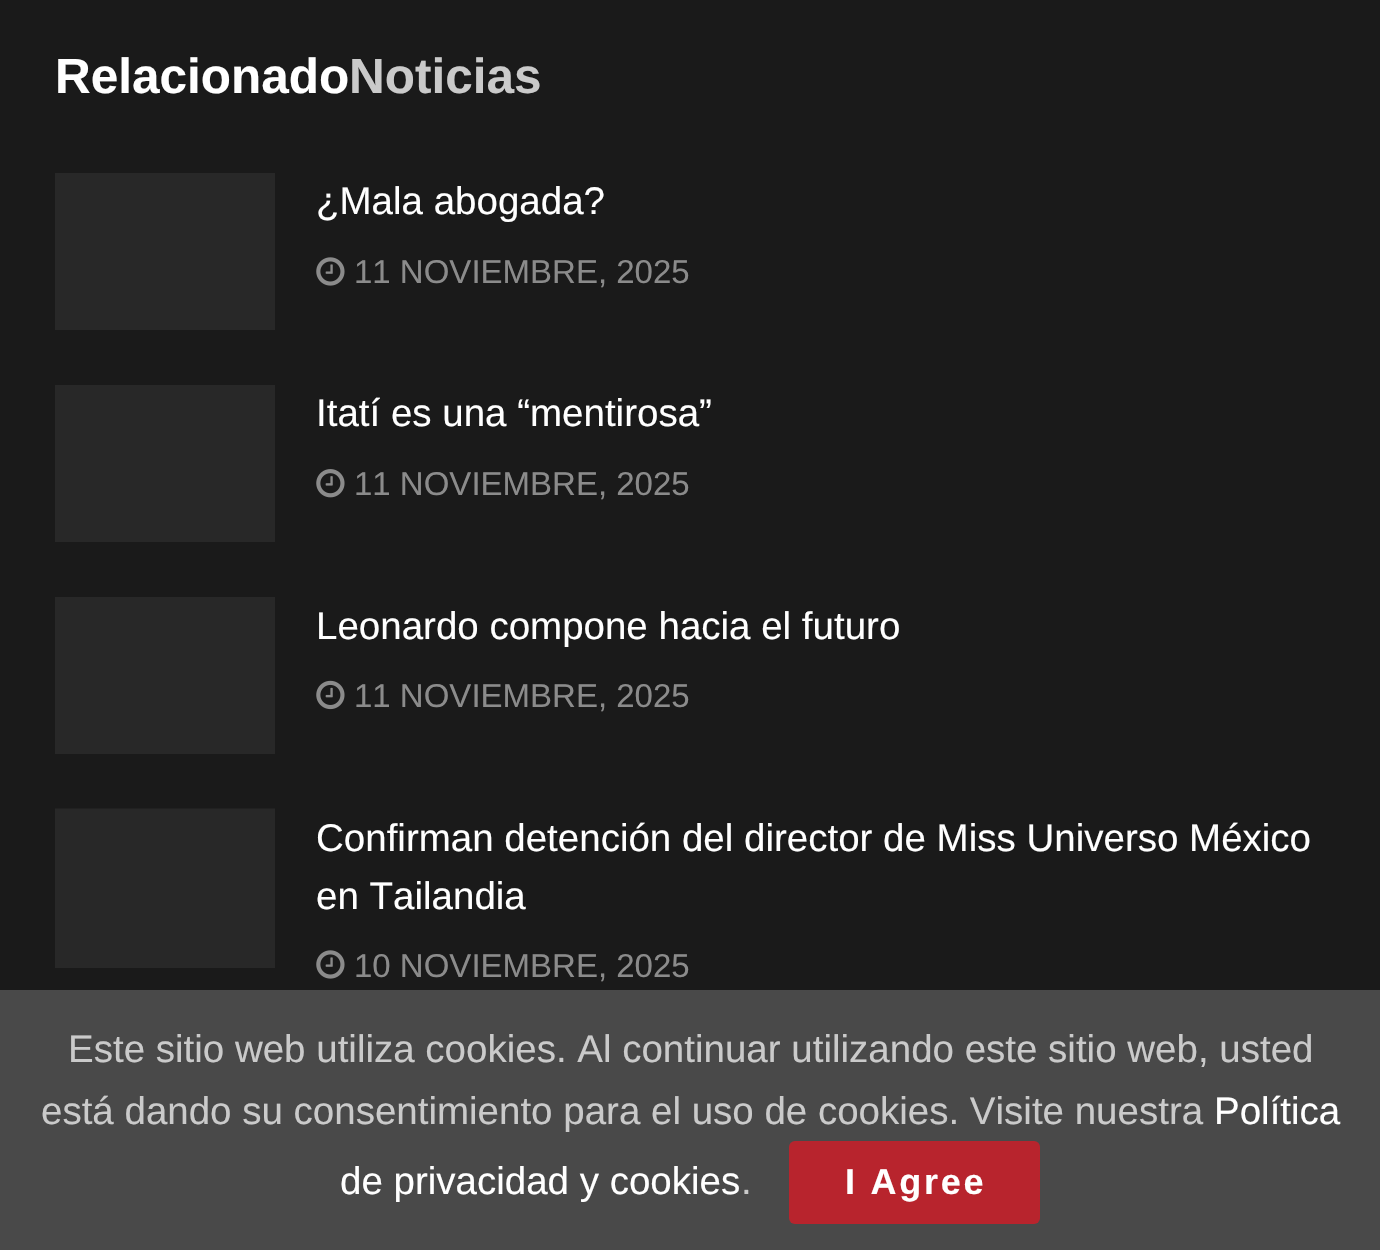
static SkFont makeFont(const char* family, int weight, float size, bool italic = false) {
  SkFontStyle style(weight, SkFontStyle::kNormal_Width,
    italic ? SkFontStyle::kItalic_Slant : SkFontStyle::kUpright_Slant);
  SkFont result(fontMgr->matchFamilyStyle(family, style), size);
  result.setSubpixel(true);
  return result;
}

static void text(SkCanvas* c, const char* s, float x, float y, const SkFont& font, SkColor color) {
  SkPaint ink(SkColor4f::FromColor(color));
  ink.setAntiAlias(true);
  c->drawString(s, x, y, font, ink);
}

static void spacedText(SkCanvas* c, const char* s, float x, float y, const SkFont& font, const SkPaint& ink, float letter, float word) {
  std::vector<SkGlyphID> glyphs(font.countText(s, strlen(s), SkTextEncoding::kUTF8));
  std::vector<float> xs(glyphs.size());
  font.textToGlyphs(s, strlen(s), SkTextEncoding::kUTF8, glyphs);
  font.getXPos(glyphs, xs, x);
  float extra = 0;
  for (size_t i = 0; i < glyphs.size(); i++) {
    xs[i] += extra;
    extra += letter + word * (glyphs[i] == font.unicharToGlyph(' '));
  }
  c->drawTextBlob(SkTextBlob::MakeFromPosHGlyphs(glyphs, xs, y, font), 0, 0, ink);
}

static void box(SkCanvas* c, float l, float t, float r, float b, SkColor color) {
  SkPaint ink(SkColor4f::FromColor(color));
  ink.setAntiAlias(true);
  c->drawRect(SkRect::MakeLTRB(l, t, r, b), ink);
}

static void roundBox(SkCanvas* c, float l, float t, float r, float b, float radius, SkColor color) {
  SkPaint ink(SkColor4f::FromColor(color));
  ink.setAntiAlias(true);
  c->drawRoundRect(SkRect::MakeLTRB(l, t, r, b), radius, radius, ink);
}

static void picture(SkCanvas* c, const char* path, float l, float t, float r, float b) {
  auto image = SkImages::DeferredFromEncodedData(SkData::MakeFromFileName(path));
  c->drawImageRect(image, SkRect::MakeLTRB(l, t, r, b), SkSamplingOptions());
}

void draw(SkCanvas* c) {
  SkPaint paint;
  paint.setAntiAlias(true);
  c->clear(0xff1a1a1a);
  SkFont face1 = makeFont("Liberation Sans", 700, 49.5f);
  text(c, "Relacionado", 55, 93, face1, 0xffffffff);
  text(c, "Noticias", 349, 93, face1, 0xffcacaca);
  box(c, 55, 173, 275, 330, 0xff282828);
  SkFont face2 = makeFont("Liberation Sans", 400, 38.5f);
  text(c, "¿Mala abogada?", 316, 214, face2, 0xffffffff);
  picture(c, "img_01.png", 316, 257, 345, 286);
  SkFont face3 = makeFont("Liberation Sans", 400, 33);
  text(c, "11 NOVIEMBRE, 2025", 354, 283, face3, 0xff8b8b8b);
  box(c, 55, 385, 275, 542, 0xff282828);
  text(c, "Itatí es una “mentirosa”", 316, 426, face2, 0xffffffff);
  picture(c, "img_02.png", 316, 469, 345, 498);
  text(c, "11 NOVIEMBRE, 2025", 354, 495, face3, 0xff8b8b8b);
  box(c, 55, 597, 275, 754, 0xff282828);
  text(c, "Leonardo compone hacia el futuro", 316, 639, face2, 0xffffffff);
  picture(c, "img_03.png", 316, 680, 345, 710);
  text(c, "11 NOVIEMBRE, 2025", 354, 707, face3, 0xff8b8b8b);
  box(c, 55, 809, 275, 968, 0xff282828);
  box(c, 55, 808, 275, 809, 0xff212121);
  text(c, "Confirman detención del director de Miss Universo México", 316, 851, face2, 0xffffffff);
  text(c, "en Tailandia", 316, 909, face2, 0xffffffff);
  picture(c, "img_01.png", 316, 950, 345, 979);
  text(c, "10 NOVIEMBRE, 2025", 354, 977, face3, 0xff8b8b8b);
  box(c, 0, 990, 1380, 1250, 0xff494949);
  text(c, "Este sitio web utiliza cookies. Al continuar utilizando este sitio web, usted", 68, 1062, face2, 0xffcacaca);
  text(c, "está dando su consentimiento para el uso de cookies. Visite nuestra", 41, 1124, face2, 0xffcacaca);
  text(c, "Política", 1214, 1124, face2, 0xffffffff);
  text(c, "de privacidad y cookies", 340, 1194, face2, 0xffffffff);
  text(c, ".", 741, 1194, face2, 0xffcacaca);
  roundBox(c, 789, 1141, 1040, 1224, 6, 0xffb8242d);
  SkFont face4 = makeFont("Liberation Sans", 700, 36);
  paint.setColor(0xffffffff);
  spacedText(c, "I Agree", 845, 1194, face4, paint, 2.75f, 0);
}
